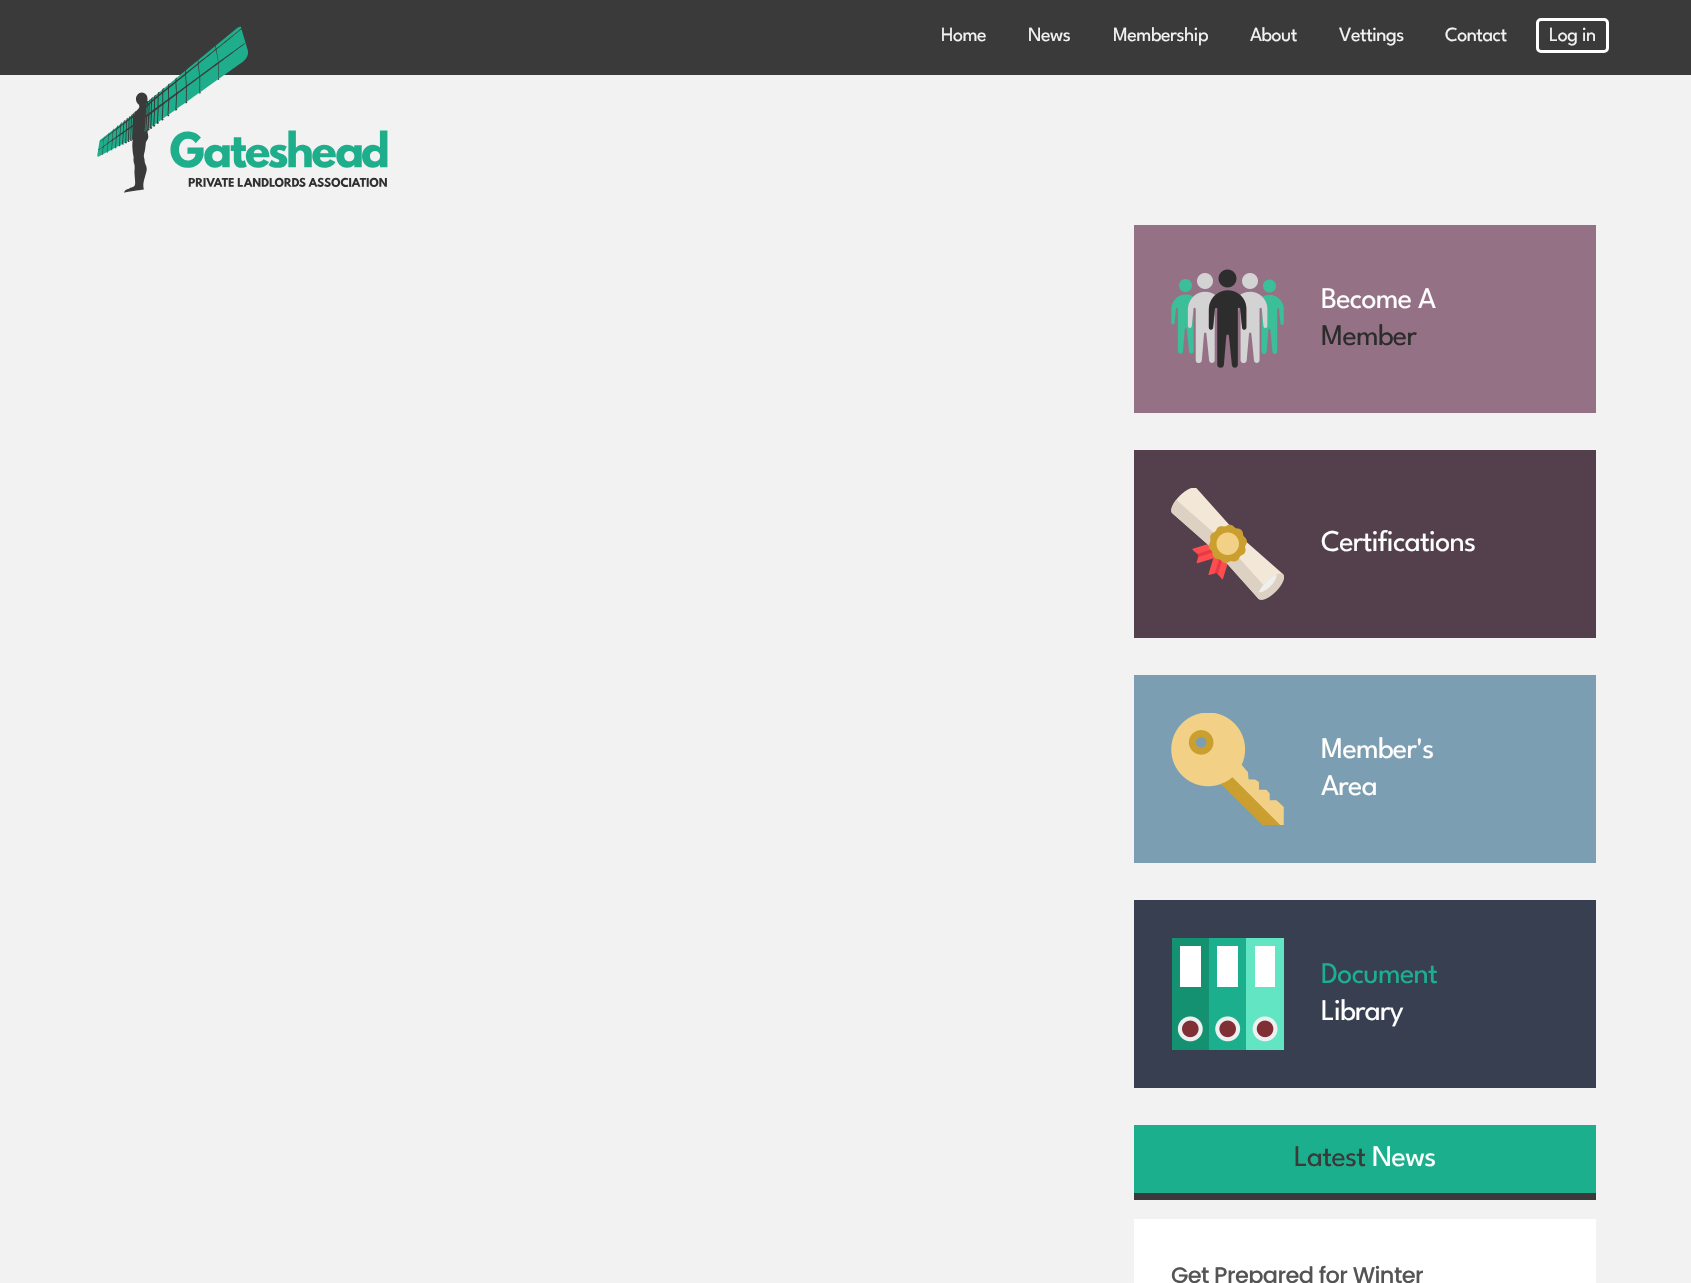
static SkFont makeFont(const char* family, int weight, float size, bool italic = false) {
  SkFontStyle style(weight, SkFontStyle::kNormal_Width,
    italic ? SkFontStyle::kItalic_Slant : SkFontStyle::kUpright_Slant);
  SkFont result(fontMgr->matchFamilyStyle(family, style), size);
  result.setSubpixel(true);
  return result;
}

static void spacedText(SkCanvas* c, const char* s, float x, float y, const SkFont& font, const SkPaint& ink, float letter, float word) {
  std::vector<SkGlyphID> glyphs(font.countText(s, strlen(s), SkTextEncoding::kUTF8));
  std::vector<float> xs(glyphs.size());
  font.textToGlyphs(s, strlen(s), SkTextEncoding::kUTF8, glyphs);
  font.getXPos(glyphs, xs, x);
  float extra = 0;
  for (size_t i = 0; i < glyphs.size(); i++) {
    xs[i] += extra;
    extra += letter + word * (glyphs[i] == font.unicharToGlyph(' '));
  }
  c->drawTextBlob(SkTextBlob::MakeFromPosHGlyphs(glyphs, xs, y, font), 0, 0, ink);
}

static void box(SkCanvas* c, float l, float t, float r, float b, SkColor color) {
  SkPaint ink(SkColor4f::FromColor(color));
  ink.setAntiAlias(true);
  c->drawRect(SkRect::MakeLTRB(l, t, r, b), ink);
}

static void picture(SkCanvas* c, const char* path, float l, float t, float r, float b) {
  auto image = SkImages::DeferredFromEncodedData(SkData::MakeFromFileName(path));
  c->drawImageRect(image, SkRect::MakeLTRB(l, t, r, b), SkSamplingOptions());
}

void draw(SkCanvas* c) {
  SkPaint paint;
  paint.setAntiAlias(true);
  c->clear(0xff3a3a3a);
  box(c, 0, 75, 1691, 1283, 0xfff2f2f2);
  picture(c, "img_01.png", 97, 26, 388, 193);
  SkFont face1 = makeFont("League Spartan", 400, 20);
  paint.setColor(0xfff2f2f2);
  spacedText(c, "Home", 941, 41, face1, paint, -0.5f, 0);
  spacedText(c, "News", 1028, 41, face1, paint, -0.5f, 0);
  spacedText(c, "Membership", 1113, 41, face1, paint, -0.5f, 0);
  spacedText(c, "About", 1250, 41, face1, paint, -0.5f, 0);
  spacedText(c, "Vettings", 1339, 41, face1, paint, -0.5f, 0);
  spacedText(c, "Contact", 1445, 41, face1, paint, -0.5f, 0);
  paint.setStyle(SkPaint::kStroke_Style);
  paint.setStrokeWidth(3);
  paint.setColor(0xffffffff);
  c->drawRoundRect(SkRect::MakeLTRB(1537.5f, 19.5f, 1607.5f, 51.5f), 3.5f, 3.5f, paint);
  paint.setStyle(SkPaint::kFill_Style);
  paint.setColor(0xfff2f2f2);
  spacedText(c, "Log in", 1549, 41, face1, paint, -0.5f, 0);
  box(c, 1134, 225, 1596, 413, 0xff957186);
  picture(c, "img_02.png", 1171, 269, 1284, 368);
  SkFont face2 = makeFont("League Spartan", 400, 30);
  paint.setColor(0xffffffff);
  spacedText(c, "Become A", 1321, 308, face2, paint, -0.75f, 0);
  paint.setColor(0xff2c2c2c);
  spacedText(c, "Member", 1321, 345, face2, paint, -0.75f, 0);
  box(c, 1134, 450, 1596, 638, 0xff53404c);
  picture(c, "img_03.png", 1171, 488, 1284, 600);
  paint.setColor(0xffffffff);
  spacedText(c, "Certifications", 1321, 551, face2, paint, -0.75f, 0);
  box(c, 1134, 675, 1596, 863, 0xff7c9eb2);
  picture(c, "img_04.png", 1171, 713, 1284, 825);
  spacedText(c, "Member's", 1321, 758, face2, paint, -0.75f, 0);
  spacedText(c, "Area", 1321, 795, face2, paint, -0.75f, 0);
  box(c, 1134, 900, 1596, 1088, 0xff383f51);
  picture(c, "img_05.png", 1172, 938, 1284, 1050);
  paint.setColor(0xff1caf8e);
  spacedText(c, "Document", 1321, 983, face2, paint, -0.75f, 0);
  paint.setColor(0xffffffff);
  spacedText(c, "Library", 1321, 1020, face2, paint, -0.75f, 0);
  box(c, 1134, 1125, 1596, 1193, 0xff1caf8e);
  box(c, 1134, 1193, 1596, 1200, 0xff3a3a3a);
  paint.setColor(0xff3a3a3a);
  spacedText(c, "Latest", 1294, 1166, face2, paint, -0.75f, 0);
  paint.setColor(0xffffffff);
  spacedText(c, "News", 1372, 1166, face2, paint, -0.75f, 0);
  box(c, 1134, 1219, 1596, 1283, 0xffffffff);
  SkFont face3 = makeFont("Poppins", 500, 22.5f);
  paint.setColor(0xff545454);
  spacedText(c, "Get Prepared for Winter", 1171, 1283, face3, paint, -0.6f, 0);
}
